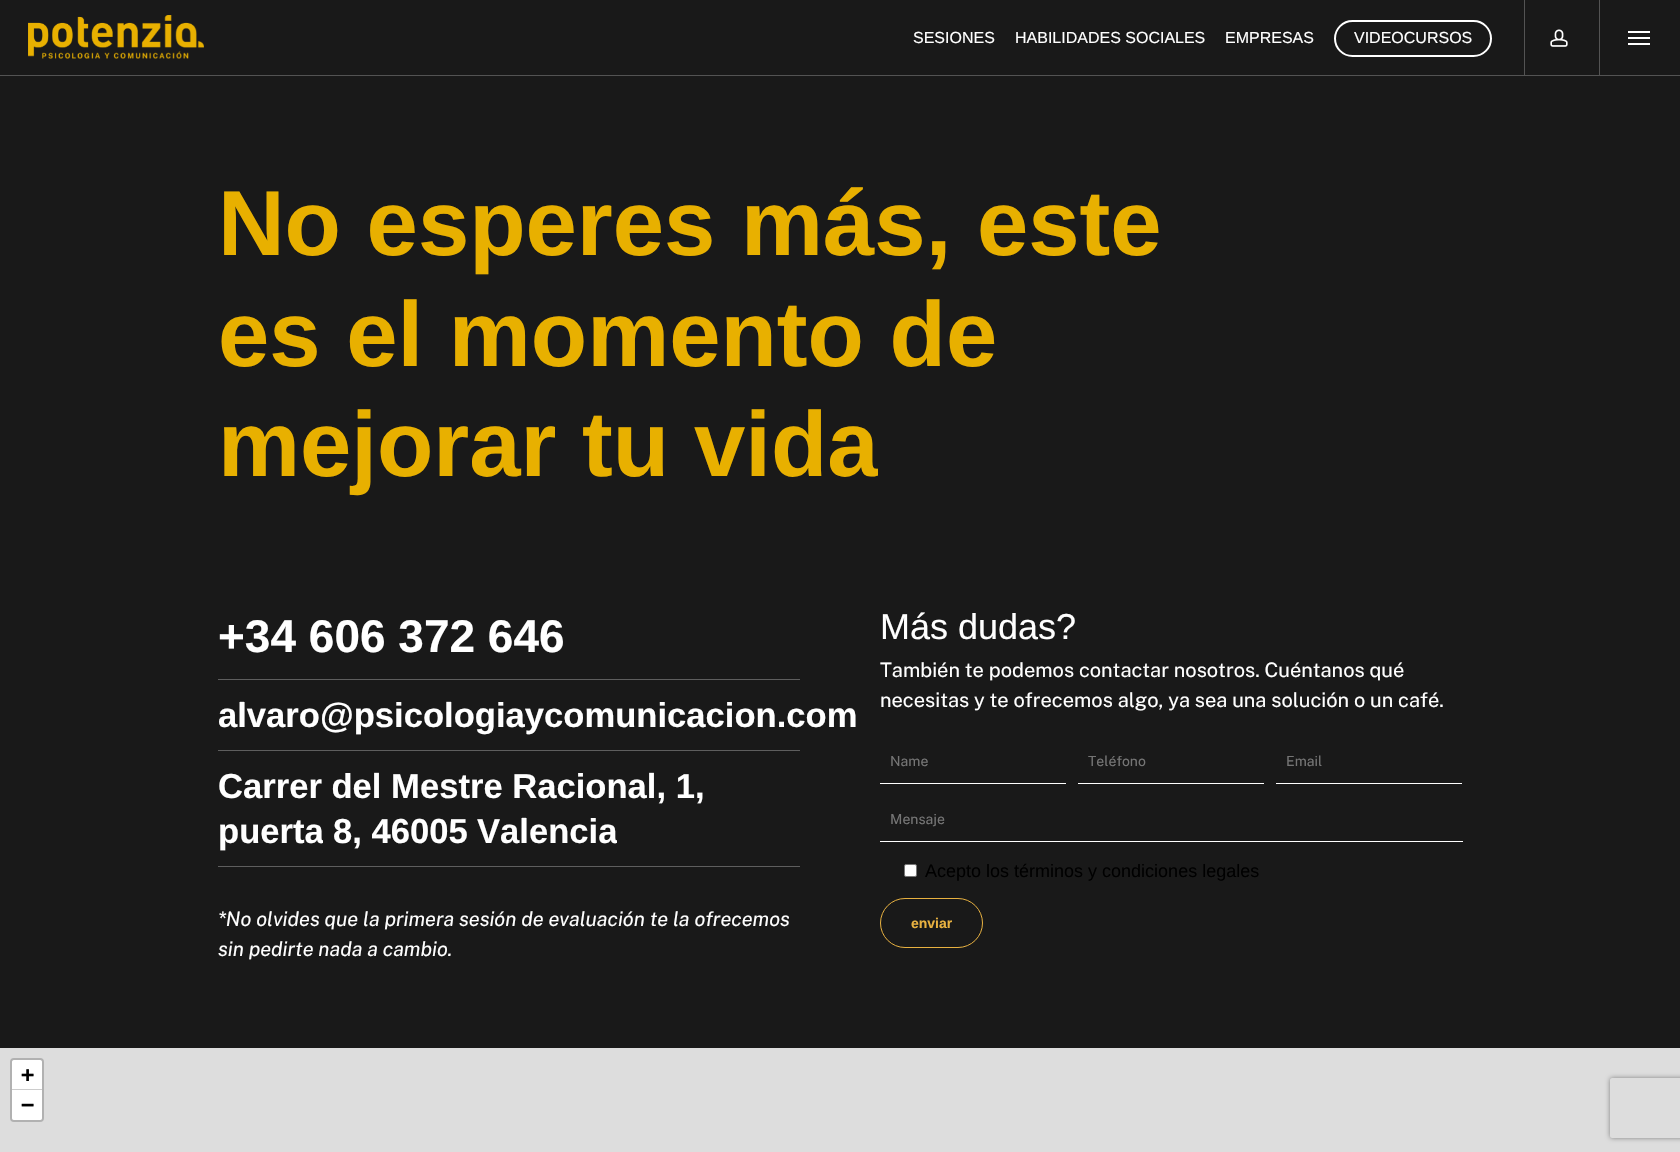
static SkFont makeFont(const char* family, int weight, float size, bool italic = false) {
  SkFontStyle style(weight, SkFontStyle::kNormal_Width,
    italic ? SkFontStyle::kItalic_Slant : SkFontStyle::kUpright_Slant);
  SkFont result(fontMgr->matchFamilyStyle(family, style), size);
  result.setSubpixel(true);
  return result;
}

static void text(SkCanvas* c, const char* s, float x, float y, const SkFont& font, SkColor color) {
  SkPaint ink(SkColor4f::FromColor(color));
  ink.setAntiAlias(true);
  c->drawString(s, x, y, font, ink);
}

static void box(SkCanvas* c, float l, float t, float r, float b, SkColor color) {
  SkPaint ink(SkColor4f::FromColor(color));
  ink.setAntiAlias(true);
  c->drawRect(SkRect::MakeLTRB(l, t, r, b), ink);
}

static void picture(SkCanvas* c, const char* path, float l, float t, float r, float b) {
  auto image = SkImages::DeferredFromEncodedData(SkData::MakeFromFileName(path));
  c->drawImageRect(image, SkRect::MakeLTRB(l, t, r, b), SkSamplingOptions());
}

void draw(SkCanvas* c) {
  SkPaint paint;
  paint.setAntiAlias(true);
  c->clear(0xff191919);
  box(c, 0, 75, 1680, 76, 0xff535353);
  picture(c, "img_01.png", 28, 15, 204, 59);
  SkFont face1 = makeFont("Liberation Sans", 400, 16);
  text(c, "SESIONES", 913, 43, face1, 0xffffffff);
  text(c, "HABILIDADES SOCIALES", 1015, 43, face1, 0xffffffff);
  text(c, "EMPRESAS", 1225, 43, face1, 0xffffffff);
  paint.setStyle(SkPaint::kStroke_Style);
  paint.setStrokeWidth(2);
  paint.setColor(0xffffffff);
  c->drawRoundRect(SkRect::MakeLTRB(1335, 21, 1491, 56), 17.5f, 17.5f, paint);
  text(c, "VIDEOCURSOS", 1354, 43, face1, 0xffffffff);
  box(c, 1524, 0, 1525, 75, 0xff535353);
  picture(c, "img_02.png", 1550, 29, 1568, 47);
  box(c, 1599, 0, 1600, 75, 0xff535353);
  box(c, 1628, 31, 1650, 33, 0xffffffff);
  box(c, 1628, 43, 1650, 45, 0xffffffff);
  box(c, 1628, 37, 1650, 39, 0xffffffff);
  SkFont face2 = makeFont("Liberation Sans", 700, 92.25f);
  text(c, "No esperes más, este", 218, 255, face2, 0xffe8b000);
  text(c, "es el momento de", 218, 366, face2, 0xffe8b000);
  text(c, "mejorar tu", 218, 476, face2, 0xffe8b000);
  c->save();
  c->clipRect(SkRect::MakeLTRB(694, 390, 878, 501));
  text(c, "vida", 694, 476, face2, 0xffe8b000);
  c->restore();
  SkFont face3 = makeFont("Liberation Sans", 700, 46);
  text(c, "+34 606 372 646", 218, 652, face3, 0xffffffff);
  box(c, 218, 679, 800, 680, 0xff5e5e5e);
  SkFont face4 = makeFont("Liberation Sans", 700, 34.6f);
  text(c, "alvaro@psicologiaycomunicacion.com", 218, 727, face4, 0xffffffff);
  box(c, 218, 750, 800, 751, 0xff5e5e5e);
  text(c, "Carrer del Mestre Racional, 1,", 218, 798, face4, 0xffffffff);
  c->save();
  c->clipRect(SkRect::MakeLTRB(218, 809, 323, 854));
  text(c, "puerta", 218, 843, face4, 0xffffffff);
  c->restore();
  text(c, "8, 46005", 333, 843, face4, 0xffffffff);
  c->save();
  c->clipRect(SkRect::MakeLTRB(477, 809, 617, 854));
  text(c, "Valencia", 477, 843, face4, 0xffffffff);
  c->restore();
  box(c, 218, 866, 800, 867, 0xff5e5e5e);
  SkFont face5 = makeFont("Public Sans", 100, 20, true);
  text(c, "*No olvides que la primera sesión de evaluación te la ofrecemos", 218, 926, face5, 0xffffffff);
  text(c, "sin pedirte nada a cambio.", 218, 956, face5, 0xffffffff);
  SkFont face6 = makeFont("Liberation Sans", 400, 36);
  text(c, "Más dudas?", 880, 639, face6, 0xffffffff);
  SkFont face7 = makeFont("Public Sans", 100, 20);
  text(c, "También te podemos contactar nosotros. Cuéntanos qué", 880, 677, face7, 0xffffffff);
  text(c, "necesitas y te ofrecemos algo, ya sea una solución o un café.", 880, 707, face7, 0xffffffff);
  box(c, 880, 783, 1066, 784, 0xffffffff);
  SkFont face8 = makeFont("Public Sans", 100, 14);
  text(c, "Name", 890, 766, face8, 0xff757575);
  box(c, 1078, 783, 1264, 784, 0xffffffff);
  text(c, "Teléfono", 1088, 766, face8, 0xff757575);
  box(c, 1276, 783, 1462, 784, 0xffffffff);
  text(c, "Email", 1286, 766, face8, 0xff757575);
  box(c, 880, 841, 1463, 842, 0xffffffff);
  text(c, "Mensaje", 890, 824, face8, 0xff757575);
  paint.setStyle(SkPaint::kFill_Style);
  c->drawRoundRect(SkRect::MakeLTRB(904.5f, 864.5f, 916.5f, 876.5f), 1.5f, 1.5f, paint);
  paint.setStyle(SkPaint::kStroke_Style);
  paint.setStrokeWidth(1);
  paint.setColor(0xff767676);
  c->drawRoundRect(SkRect::MakeLTRB(904.5f, 864.5f, 916.5f, 876.5f), 1.5f, 1.5f, paint);
  SkFont face9 = makeFont("Liberation Sans", 400, 18);
  text(c, "Acepto los términos y condiciones legales", 925, 877, face9, 0xff000000);
  paint.setColor(0xffe8b140);
  c->drawRoundRect(SkRect::MakeLTRB(880.5f, 898.5f, 982.5f, 947.5f), 24.5f, 24.5f, paint);
  SkFont face10 = makeFont("Liberation Sans", 700, 14);
  text(c, "enviar", 911, 928, face10, 0xffe8b140);
  box(c, 0, 1048, 1680, 1152, 0xffdddddd);
  paint.setStrokeWidth(2);
  paint.setColor(0xffb1b1b1);
  c->drawRoundRect(SkRect::MakeLTRB(11, 1059, 43, 1121), 3, 3, paint);
  paint.setStyle(SkPaint::kFill_Style);
  paint.setColor(0xffffffff);
  c->drawPath(SkPathBuilder().moveTo(14, 1060).lineTo(40, 1060).cubicTo(41, 1060, 42, 1061, 42, 1062).lineTo(42, 1090).lineTo(12, 1090).lineTo(12, 1062).cubicTo(12, 1061, 13, 1060, 14, 1060).close().detach(), paint);
  box(c, 12, 1089, 42, 1090, 0xffcccccc);
  SkFont face11 = makeFont("DejaVu Sans Mono", 700, 22);
  text(c, "+", 21, 1082, face11, 0xff000000);
  c->drawPath(SkPathBuilder().moveTo(12, 1090).lineTo(42, 1090).lineTo(42, 1118).cubicTo(42, 1119, 41, 1120, 40, 1120).lineTo(14, 1120).cubicTo(13, 1120, 12, 1119, 12, 1118).close().detach(), paint);
  text(c, "−", 21, 1112, face11, 0xff000000);
  c->save();
  c->clipPath(SkPathBuilder(SkPathFillType::kEvenOdd).moveTo(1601, 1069).lineTo(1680, 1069).lineTo(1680, 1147).lineTo(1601, 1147).close().moveTo(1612, 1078).lineTo(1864, 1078).cubicTo(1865, 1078, 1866, 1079, 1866, 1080).lineTo(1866, 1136).cubicTo(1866, 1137, 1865, 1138, 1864, 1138).lineTo(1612, 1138).cubicTo(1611, 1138, 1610, 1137, 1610, 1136).lineTo(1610, 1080).cubicTo(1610, 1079, 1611, 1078, 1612, 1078).close().detach(), true);
  paint.setColor(0xff808080);
  paint.setMaskFilter(SkMaskFilter::MakeBlur(kNormal_SkBlurStyle, 2.5f));
  c->drawRoundRect(SkRect::MakeLTRB(1610, 1078, 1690, 1138), 2, 2, paint);
  paint.setMaskFilter(nullptr);
  c->restore();
}
